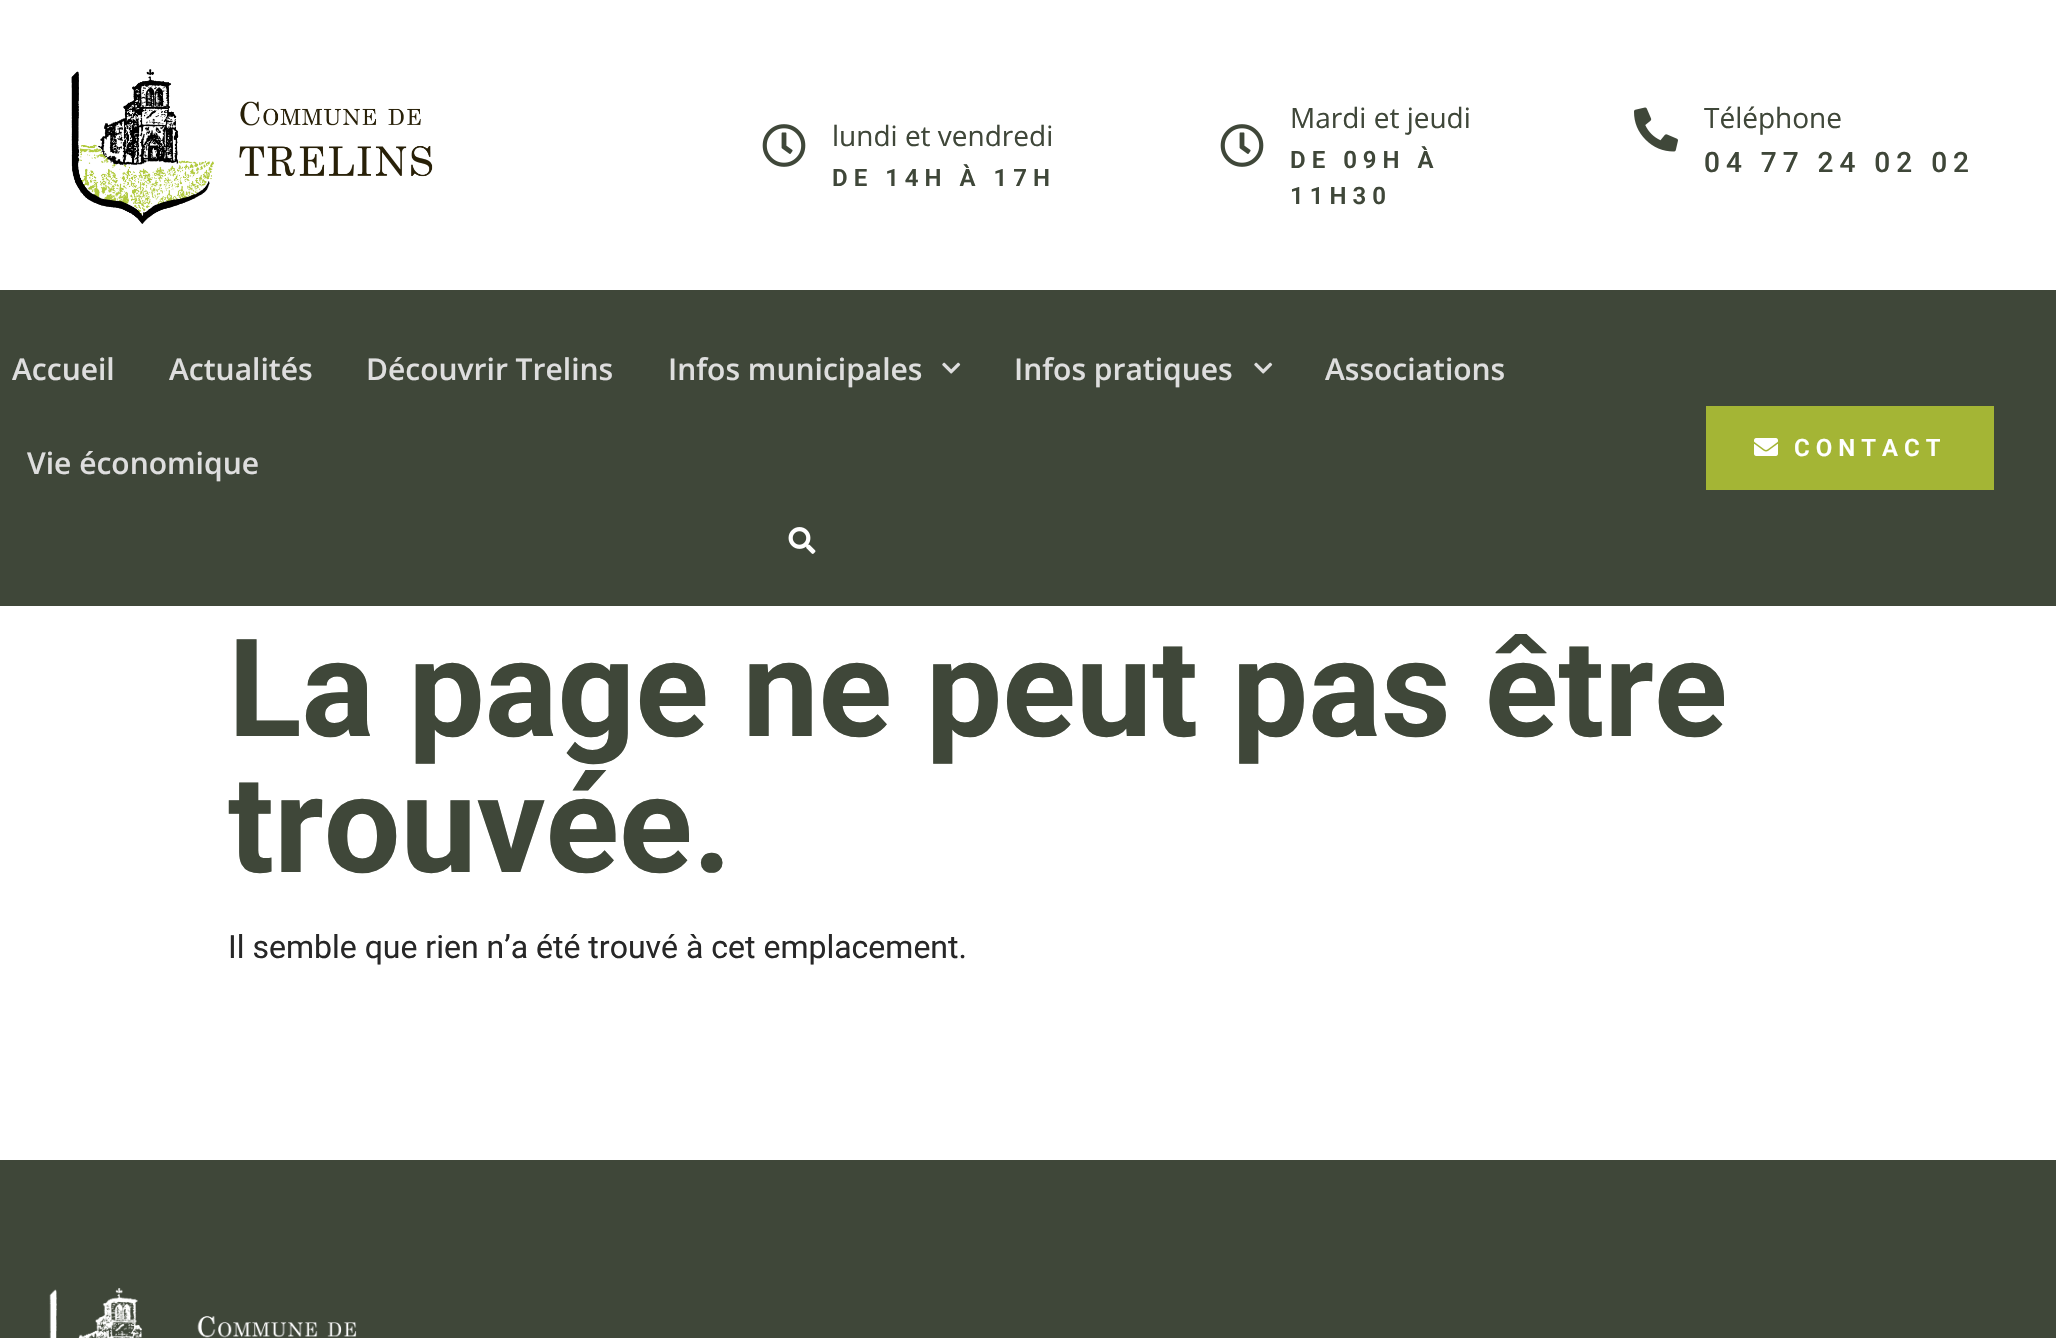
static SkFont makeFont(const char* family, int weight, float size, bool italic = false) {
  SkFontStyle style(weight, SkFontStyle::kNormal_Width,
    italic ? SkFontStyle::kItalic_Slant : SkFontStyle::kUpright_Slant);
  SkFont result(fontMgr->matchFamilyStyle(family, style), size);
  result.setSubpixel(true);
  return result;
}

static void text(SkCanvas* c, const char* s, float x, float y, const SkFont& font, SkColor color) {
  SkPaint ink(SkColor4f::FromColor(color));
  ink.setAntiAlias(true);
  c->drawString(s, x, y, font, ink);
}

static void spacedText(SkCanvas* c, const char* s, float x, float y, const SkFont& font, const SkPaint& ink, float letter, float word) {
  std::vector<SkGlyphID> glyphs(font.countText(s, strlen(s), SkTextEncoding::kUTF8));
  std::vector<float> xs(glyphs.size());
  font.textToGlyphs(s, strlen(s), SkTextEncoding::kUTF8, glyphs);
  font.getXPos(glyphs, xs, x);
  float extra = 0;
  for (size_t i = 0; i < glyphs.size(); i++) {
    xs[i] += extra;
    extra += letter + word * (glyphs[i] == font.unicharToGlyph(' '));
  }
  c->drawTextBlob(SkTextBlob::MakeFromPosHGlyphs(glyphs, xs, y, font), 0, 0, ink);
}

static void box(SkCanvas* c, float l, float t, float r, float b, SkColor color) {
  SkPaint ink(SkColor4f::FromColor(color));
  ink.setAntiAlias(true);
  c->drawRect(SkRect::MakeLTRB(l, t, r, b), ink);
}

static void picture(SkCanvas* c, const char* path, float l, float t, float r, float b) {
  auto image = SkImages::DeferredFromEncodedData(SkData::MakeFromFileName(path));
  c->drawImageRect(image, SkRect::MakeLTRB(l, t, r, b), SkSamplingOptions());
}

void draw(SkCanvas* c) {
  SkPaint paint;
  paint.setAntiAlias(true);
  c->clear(0xffffffff);
  picture(c, "img_01.png", 71, 69, 433, 224);
  picture(c, "img_02.png", 762, 124, 806, 167);
  SkFont face1 = makeFont("Open Sans", 400, 28);
  text(c, "lundi et vendredi", 832, 146, face1, 0xff3f4739);
  SkFont face2 = makeFont("Roboto", 600, 24);
  paint.setColor(0xff3f4739);
  spacedText(c, "DE 14H À 17H", 832, 186, face2, paint, 6, 0);
  picture(c, "img_02.png", 1220, 124, 1264, 167);
  text(c, "Mardi et jeudi", 1290, 128, face1, 0xff3f4739);
  spacedText(c, "DE 09H À", 1290, 168, face2, paint, 6, 0);
  spacedText(c, "11H30", 1290, 204, face2, paint, 6, 0);
  picture(c, "img_03.png", 1634, 107, 1678, 152);
  text(c, "Téléphone", 1704, 128, face1, 0xff3f4739);
  SkFont face3 = makeFont("Roboto", 500, 28);
  spacedText(c, "04 77 24 02 02", 1704, 172, face3, paint, 6, 0);
  box(c, 0, 290, 2056, 606, 0xff3f4739);
  SkFont face4 = makeFont("Open Sans", 600, 30);
  text(c, "Accueil", 12, 380, face4, 0xffdedede);
  text(c, "Actualités", 169, 380, face4, 0xffdedede);
  text(c, "Découvrir Trelins", 366, 380, face4, 0xffdedede);
  text(c, "Infos municipales", 668, 380, face4, 0xffdedede);
  picture(c, "img_04.png", 942, 362, 961, 374);
  text(c, "Infos pratiques", 1014, 380, face4, 0xffdedede);
  picture(c, "img_04.png", 1254, 362, 1273, 374);
  text(c, "Associations", 1325, 380, face4, 0xffdedede);
  text(c, "Vie économique", 27, 474, face4, 0xffdedede);
  picture(c, "img_05.png", 788, 527, 816, 554);
  box(c, 1706, 406, 1994, 490, 0xffa4b535);
  picture(c, "img_06.png", 1754, 438, 1778, 456);
  paint.setColor(0xffffffff);
  spacedText(c, "CONTACT", 1794, 456, face2, paint, 6, 0);
  SkFont face5 = makeFont("Roboto", 700, 136);
  text(c, "La page ne peut pas être", 228, 736, face5, 0xff3f4739);
  text(c, "trouvée.", 228, 872, face5, 0xff3f4739);
  SkFont face6 = makeFont("Roboto", 400, 32);
  text(c, "Il semble que rien n’a été trouvé à cet emplacement.", 228, 958, face6, 0xff272727);
  box(c, 0, 1160, 2056, 1338, 0xff3f4739);
  picture(c, "img_07.png", 49, 1288, 357, 1338);
}
